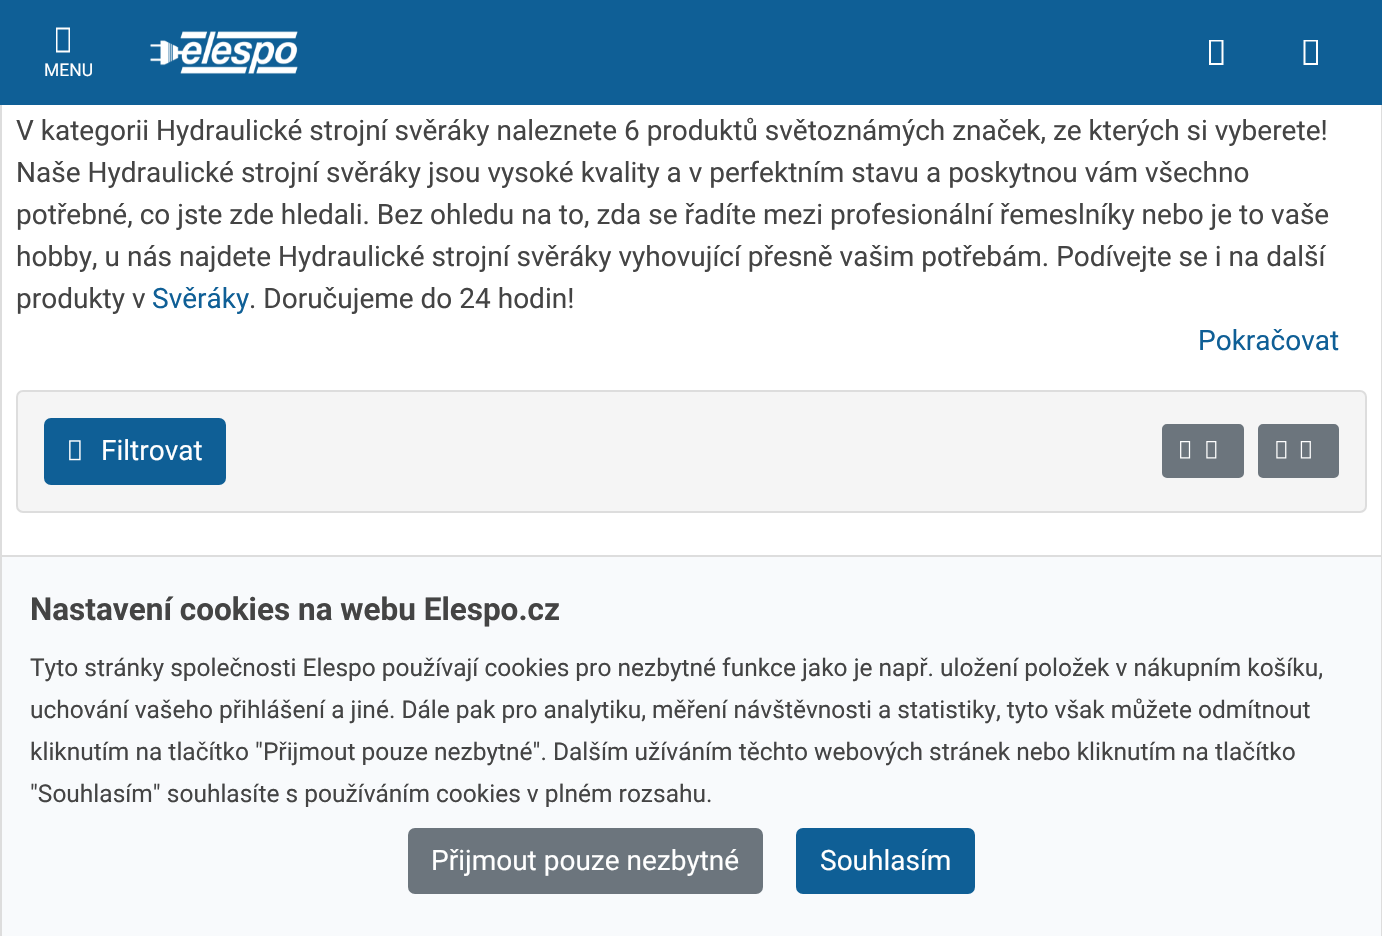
static SkFont makeFont(const char* family, int weight, float size, bool italic = false) {
  SkFontStyle style(weight, SkFontStyle::kNormal_Width,
    italic ? SkFontStyle::kItalic_Slant : SkFontStyle::kUpright_Slant);
  SkFont result(fontMgr->matchFamilyStyle(family, style), size);
  result.setSubpixel(true);
  return result;
}

static void text(SkCanvas* c, const char* s, float x, float y, const SkFont& font, SkColor color) {
  SkPaint ink(SkColor4f::FromColor(color));
  ink.setAntiAlias(true);
  c->drawString(s, x, y, font, ink);
}

static void box(SkCanvas* c, float l, float t, float r, float b, SkColor color) {
  SkPaint ink(SkColor4f::FromColor(color));
  ink.setAntiAlias(true);
  c->drawRect(SkRect::MakeLTRB(l, t, r, b), ink);
}

static void picture(SkCanvas* c, const char* path, float l, float t, float r, float b) {
  auto image = SkImages::DeferredFromEncodedData(SkData::MakeFromFileName(path));
  c->drawImageRect(image, SkRect::MakeLTRB(l, t, r, b), SkSamplingOptions());
}

void draw(SkCanvas* c) {
  SkPaint paint;
  paint.setAntiAlias(true);
  c->clear(0xffffffff);
  box(c, 1381, 105, 1382, 555, 0xffdddddd);
  box(c, 0, 105, 2, 555, 0xffdddddd);
  box(c, 0, 0, 1382, 105, 0xff0f5f96);
  picture(c, "img_01.png", 150, 31, 298, 74);
  paint.setColor(0xffffffff);
  c->drawPath(SkPathBuilder().moveTo(1209, 65).lineTo(1209, 40).lineTo(1223.5f, 40).lineTo(1223.5f, 65).close().moveTo(1211, 63).lineTo(1221.5f, 63).lineTo(1221.5f, 41.5f).lineTo(1211, 41.5f).close().detach(), paint);
  c->drawPath(SkPathBuilder().moveTo(1303.5f, 65).lineTo(1303.5f, 40).lineTo(1318, 40).lineTo(1318, 65).close().moveTo(1305.5f, 63).lineTo(1316, 63).lineTo(1316, 41.5f).lineTo(1305.5f, 41.5f).close().detach(), paint);
  c->drawPath(SkPathBuilder().moveTo(56, 52.5f).lineTo(56, 27.5f).lineTo(70, 27.5f).lineTo(70, 52.5f).close().moveTo(57.5f, 50.5f).lineTo(68.5f, 50.5f).lineTo(68.5f, 29.5f).lineTo(57.5f, 29.5f).close().detach(), paint);
  SkFont face1 = makeFont("Roboto", 400, 17.5f);
  text(c, "MENU", 44, 76, face1, 0xffffffff);
  SkFont face2 = makeFont("Roboto", 400, 28);
  text(c, "V kategorii Hydraulické strojní svěráky naleznete 6 produktů světoznámých značek, ze kterých si vyberete!", 16, 140, face2, 0xff444444);
  text(c, "Naše Hydraulické strojní svěráky jsou vysoké kvality a v perfektním stavu a poskytnou vám všechno", 16, 182, face2, 0xff444444);
  text(c, "potřebné, co jste zde hledali. Bez ohledu na to, zda se řadíte mezi profesionální řemeslníky nebo je to vaše", 16, 224, face2, 0xff444444);
  text(c, "hobby, u nás najdete Hydraulické strojní svěráky vyhovující přesně vašim potřebám. Podívejte se i na další", 16, 266, face2, 0xff444444);
  text(c, "produkty v", 16, 308, face2, 0xff444444);
  text(c, "Svěráky", 152, 308, face2, 0xff0f5f96);
  text(c, ". Doručujeme do 24 hodin!", 249, 308, face2, 0xff444444);
  text(c, "Pokračovat", 1198, 350, face2, 0xff0f5f96);
  paint.setColor(0xfff5f5f5);
  c->drawRoundRect(SkRect::MakeLTRB(17, 391, 1366, 512), 6, 6, paint);
  paint.setStyle(SkPaint::kStroke_Style);
  paint.setStrokeWidth(2);
  paint.setColor(0xffdddddd);
  c->drawRoundRect(SkRect::MakeLTRB(17, 391, 1366, 512), 6, 6, paint);
  paint.setStyle(SkPaint::kFill_Style);
  paint.setColor(0xff0f5f96);
  c->drawRoundRect(SkRect::MakeLTRB(45, 419, 225, 484), 6, 6, paint);
  paint.setStyle(SkPaint::kStroke_Style);
  c->drawRoundRect(SkRect::MakeLTRB(45, 419, 225, 484), 6, 6, paint);
  picture(c, "img_02.png", 69, 440, 81, 461);
  text(c, "Filtrovat", 101, 460, face2, 0xffffffff);
  paint.setStyle(SkPaint::kFill_Style);
  paint.setColor(0xff6c757d);
  c->drawRoundRect(SkRect::MakeLTRB(1163, 425, 1243, 477), 4, 4, paint);
  paint.setStyle(SkPaint::kStroke_Style);
  c->drawRoundRect(SkRect::MakeLTRB(1163, 425, 1243, 477), 4, 4, paint);
  picture(c, "img_03.png", 1180, 441, 1191, 459);
  picture(c, "img_04.png", 1206, 441, 1217, 459);
  paint.setStyle(SkPaint::kFill_Style);
  c->drawRoundRect(SkRect::MakeLTRB(1259, 425, 1338, 477), 4, 4, paint);
  paint.setStyle(SkPaint::kStroke_Style);
  c->drawRoundRect(SkRect::MakeLTRB(1259, 425, 1338, 477), 4, 4, paint);
  picture(c, "img_04.png", 1276, 441, 1287, 459);
  picture(c, "img_05.png", 1300, 441, 1311, 459);
  box(c, 2, 557, 1381, 936, 0xfff8fafc);
  box(c, 0, 555, 1382, 557, 0xffdddddd);
  box(c, 1381, 555, 1382, 936, 0xffdddddd);
  box(c, 0, 555, 2, 936, 0xffdddddd);
  SkFont face3 = makeFont("Roboto", 700, 31.5f);
  text(c, "Nastavení cookies na webu Elespo.cz", 30, 620, face3, 0xff444444);
  SkFont face4 = makeFont("Roboto", 400, 24.5f);
  text(c, "Tyto stránky společnosti Elespo používají cookies pro nezbytné funkce jako je např. uložení položek v nákupním košíku,", 30, 676, face4, 0xff444444);
  text(c, "uchování vašeho přihlášení a jiné. Dále pak pro analytiku, měření návštěvnosti a statistiky, tyto však můžete odmítnout", 30, 718, face4, 0xff444444);
  text(c, "kliknutím na tlačítko \"Přijmout pouze nezbytné\". Dalším užíváním těchto webových stránek nebo kliknutím na tlačítko", 30, 760, face4, 0xff444444);
  text(c, "\"Souhlasím\" souhlasíte s používáním cookies v plném rozsahu.", 30, 802, face4, 0xff444444);
  paint.setStyle(SkPaint::kFill_Style);
  c->drawRoundRect(SkRect::MakeLTRB(409, 829, 762, 893), 6, 6, paint);
  paint.setStyle(SkPaint::kStroke_Style);
  c->drawRoundRect(SkRect::MakeLTRB(409, 829, 762, 893), 6, 6, paint);
  text(c, "Přijmout pouze nezbytné", 431, 870, face2, 0xffffffff);
  paint.setStyle(SkPaint::kFill_Style);
  paint.setColor(0xff0f5f96);
  c->drawRoundRect(SkRect::MakeLTRB(797, 829, 974, 893), 6, 6, paint);
  paint.setStyle(SkPaint::kStroke_Style);
  c->drawRoundRect(SkRect::MakeLTRB(797, 829, 974, 893), 6, 6, paint);
  text(c, "Souhlasím", 820, 870, face2, 0xffffffff);
}
